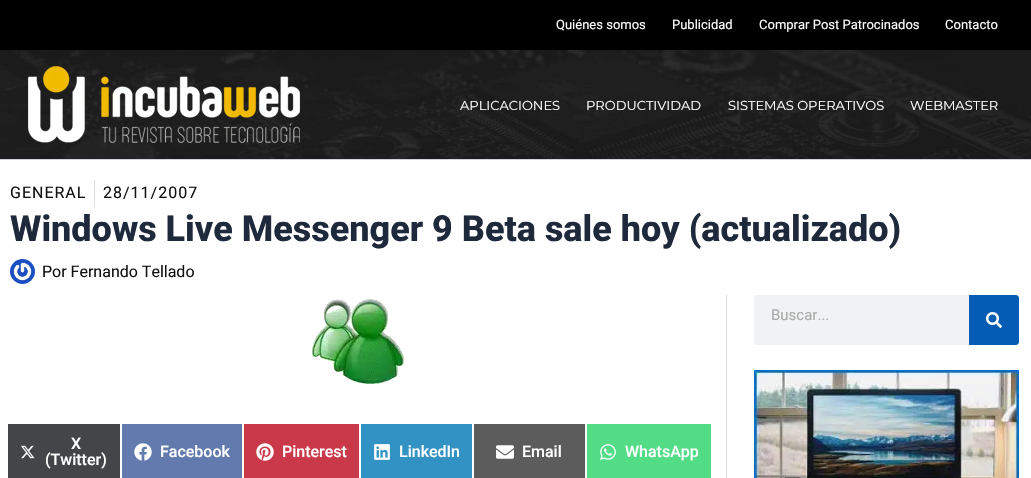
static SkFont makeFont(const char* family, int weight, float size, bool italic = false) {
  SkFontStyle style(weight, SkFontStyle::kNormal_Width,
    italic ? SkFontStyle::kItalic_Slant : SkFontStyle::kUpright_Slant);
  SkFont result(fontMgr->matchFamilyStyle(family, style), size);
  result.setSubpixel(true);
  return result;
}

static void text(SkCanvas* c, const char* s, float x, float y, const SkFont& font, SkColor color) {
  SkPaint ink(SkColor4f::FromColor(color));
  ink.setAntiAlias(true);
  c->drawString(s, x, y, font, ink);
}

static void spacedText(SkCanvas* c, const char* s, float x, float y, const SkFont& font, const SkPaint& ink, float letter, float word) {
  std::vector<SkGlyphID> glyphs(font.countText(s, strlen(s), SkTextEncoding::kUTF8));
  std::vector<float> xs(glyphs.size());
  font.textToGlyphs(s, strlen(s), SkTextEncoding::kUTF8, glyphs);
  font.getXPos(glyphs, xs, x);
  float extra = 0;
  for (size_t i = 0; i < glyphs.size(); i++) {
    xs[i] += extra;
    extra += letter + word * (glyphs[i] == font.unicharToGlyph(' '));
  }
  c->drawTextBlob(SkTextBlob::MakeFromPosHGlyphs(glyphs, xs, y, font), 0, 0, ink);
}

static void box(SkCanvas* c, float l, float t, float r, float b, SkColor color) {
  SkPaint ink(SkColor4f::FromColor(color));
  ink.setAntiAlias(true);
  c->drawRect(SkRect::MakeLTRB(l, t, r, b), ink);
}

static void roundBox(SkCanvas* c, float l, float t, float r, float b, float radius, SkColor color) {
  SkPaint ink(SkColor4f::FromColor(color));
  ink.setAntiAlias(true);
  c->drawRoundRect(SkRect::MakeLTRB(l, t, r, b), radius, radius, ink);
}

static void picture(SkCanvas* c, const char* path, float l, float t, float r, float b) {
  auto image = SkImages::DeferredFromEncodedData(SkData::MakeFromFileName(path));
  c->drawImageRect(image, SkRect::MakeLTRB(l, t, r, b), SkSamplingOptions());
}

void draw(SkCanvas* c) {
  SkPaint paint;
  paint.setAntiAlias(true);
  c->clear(0xffffffff);
  box(c, 0, 0, 1031, 50, 0xff000000);
  SkFont face1 = makeFont("Roboto", 400, 13);
  text(c, "Quiénes somos", 556, 29, face1, 0xffffffff);
  text(c, "Publicidad", 672, 29, face1, 0xffffffff);
  text(c, "Comprar Post Patrocinados", 759, 29, face1, 0xffffffff);
  text(c, "Contacto", 945, 29, face1, 0xffffffff);
  picture(c, "img_01.png", 0, 50, 1031, 159);
  box(c, 0, 159, 1031, 160, 0xffd1d5db);
  picture(c, "img_02.png", 28, 66, 300, 143);
  SkFont face2 = makeFont("Montserrat", 100, 13);
  text(c, "APLICACIONES", 460, 110, face2, 0xffffffff);
  text(c, "PRODUCTIVIDAD", 586, 110, face2, 0xffffffff);
  text(c, "SISTEMAS OPERATIVOS", 728, 110, face2, 0xffffffff);
  text(c, "WEBMASTER", 910, 110, face2, 0xffffffff);
  SkFont face3 = makeFont("Roboto", 400, 16);
  paint.setColor(0xff111111);
  spacedText(c, "GENERAL", 10, 198, face3, paint, 1, 0);
  box(c, 94, 180, 95, 207, 0xffdddddd);
  spacedText(c, "28/11/2007", 103, 198, face3, paint, 1, 0);
  SkFont face4 = makeFont("Roboto", 800, 36);
  text(c, "Windows Live Messenger 9 Beta sale hoy (actualizado)", 10, 241, face4, 0xff1e293b);
  picture(c, "img_03.png", 10, 259, 35, 284);
  text(c, "Por Fernando Tellado", 42, 277, face3, 0xff111111);
  roundBox(c, 754, 295, 1019, 345, 3, 0xfff1f2f3);
  SkFont face5 = makeFont("Roboto", 400, 15);
  text(c, "Buscar...", 771, 320, face5, 0xffaaaaaa);
  paint.setColor(0xff045cb4);
  c->drawPath(SkPathBuilder().moveTo(969, 295).lineTo(1016, 295).cubicTo(1017.5f, 295, 1019, 296.5f, 1019, 298).lineTo(1019, 342).cubicTo(1019, 343.5f, 1017.5f, 345, 1016, 345).lineTo(969, 345).close().detach(), paint);
  picture(c, "img_04.png", 986, 312, 1002, 328);
  picture(c, "img_05.png", 754, 370, 1019, 478);
  box(c, 726, 295, 727, 478, 0xffdbdbdb);
  picture(c, "img_06.png", 312, 299, 404, 384);
  box(c, 8, 424, 120, 478, 0xff434548);
  picture(c, "img_07.png", 20, 445, 35, 459);
  SkFont face6 = makeFont("Roboto", 500, 16);
  text(c, "X", 71, 449, face6, 0xffffffff);
  text(c, "(Twitter)", 45, 465, face6, 0xffffffff);
  box(c, 122, 424, 242, 478, 0xff627aad);
  picture(c, "img_08.png", 134, 443, 152, 461);
  text(c, "Facebook", 160, 457, face6, 0xffffffff);
  box(c, 244, 424, 359, 478, 0xffca3949);
  picture(c, "img_09.png", 256, 443, 274, 461);
  text(c, "Pinterest", 282, 457, face6, 0xffffffff);
  box(c, 361, 424, 472, 478, 0xff3392c4);
  picture(c, "img_10.png", 374, 444, 390, 460);
  text(c, "LinkedIn", 399, 457, face6, 0xffffffff);
  box(c, 474, 424, 585, 478, 0xff5c5c5c);
  picture(c, "img_11.png", 496, 445, 514, 459);
  text(c, "Email", 522, 457, face6, 0xffffffff);
  box(c, 587, 424, 711, 478, 0xff51dc85);
  picture(c, "img_12.png", 600, 444, 616, 460);
  text(c, "WhatsApp", 625, 457, face6, 0xffffffff);
}
